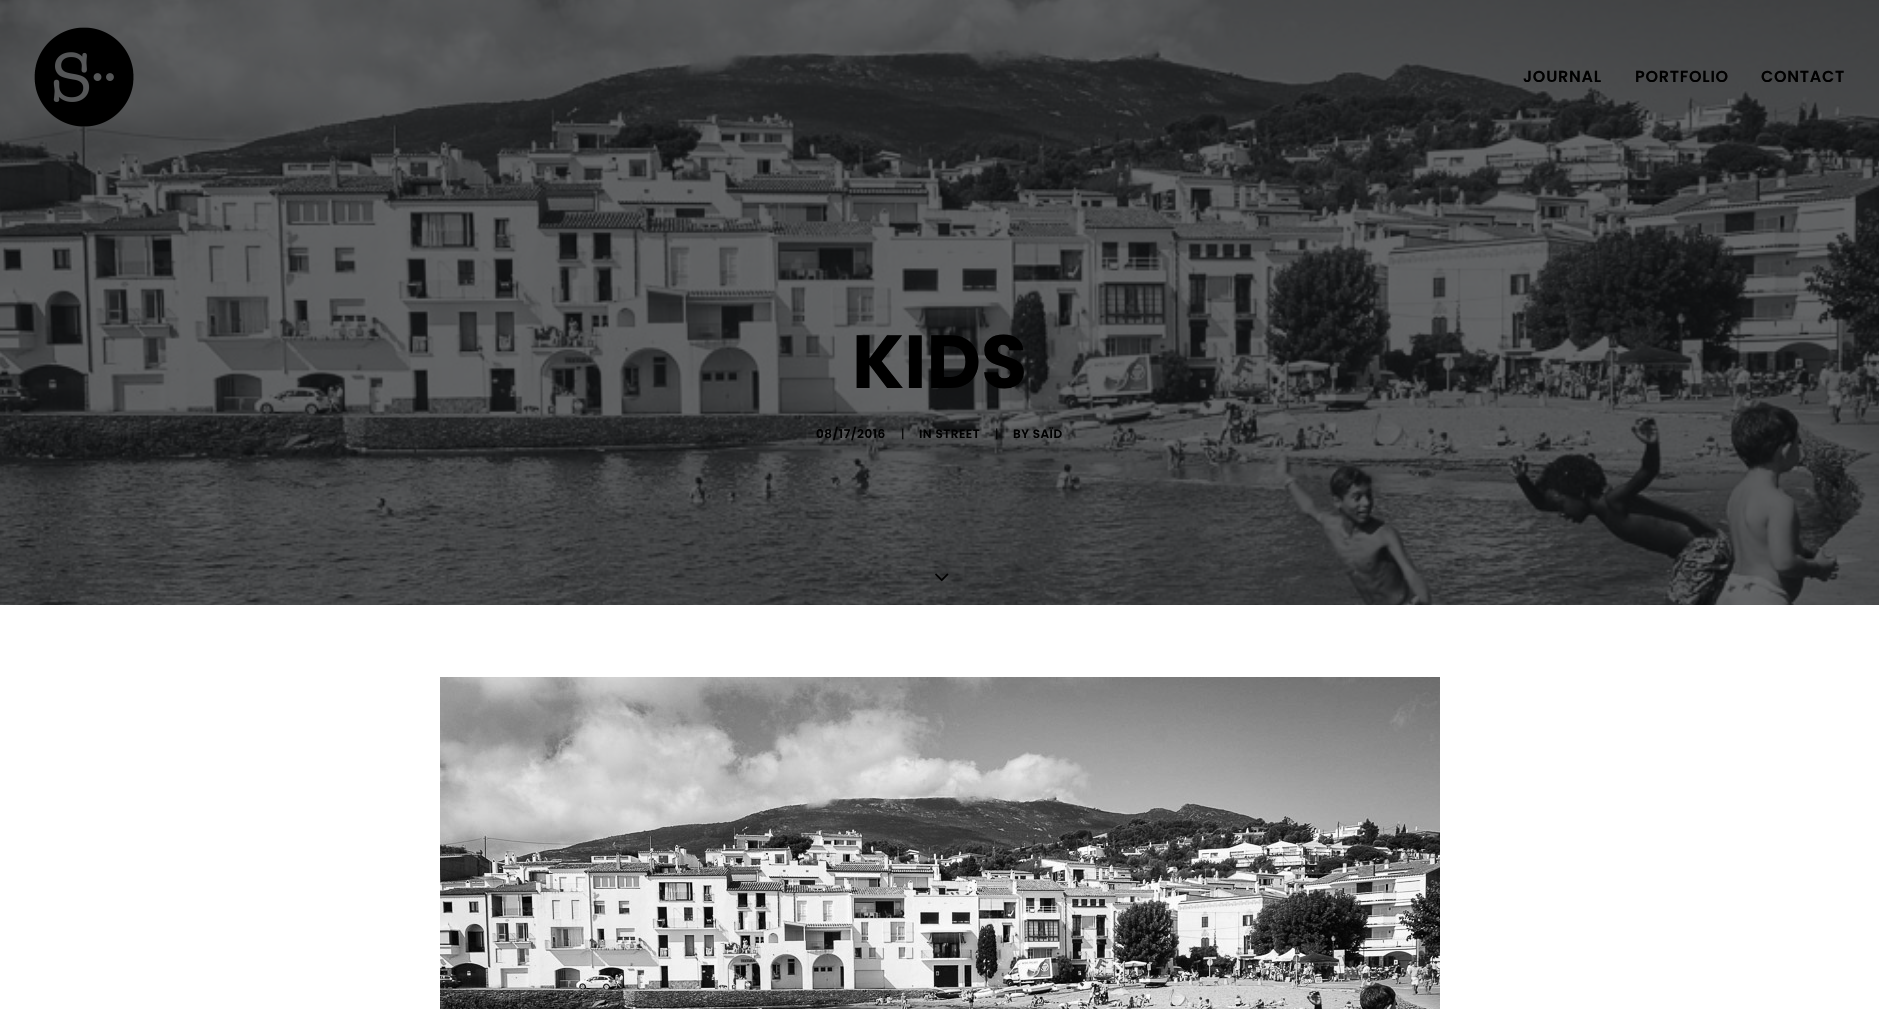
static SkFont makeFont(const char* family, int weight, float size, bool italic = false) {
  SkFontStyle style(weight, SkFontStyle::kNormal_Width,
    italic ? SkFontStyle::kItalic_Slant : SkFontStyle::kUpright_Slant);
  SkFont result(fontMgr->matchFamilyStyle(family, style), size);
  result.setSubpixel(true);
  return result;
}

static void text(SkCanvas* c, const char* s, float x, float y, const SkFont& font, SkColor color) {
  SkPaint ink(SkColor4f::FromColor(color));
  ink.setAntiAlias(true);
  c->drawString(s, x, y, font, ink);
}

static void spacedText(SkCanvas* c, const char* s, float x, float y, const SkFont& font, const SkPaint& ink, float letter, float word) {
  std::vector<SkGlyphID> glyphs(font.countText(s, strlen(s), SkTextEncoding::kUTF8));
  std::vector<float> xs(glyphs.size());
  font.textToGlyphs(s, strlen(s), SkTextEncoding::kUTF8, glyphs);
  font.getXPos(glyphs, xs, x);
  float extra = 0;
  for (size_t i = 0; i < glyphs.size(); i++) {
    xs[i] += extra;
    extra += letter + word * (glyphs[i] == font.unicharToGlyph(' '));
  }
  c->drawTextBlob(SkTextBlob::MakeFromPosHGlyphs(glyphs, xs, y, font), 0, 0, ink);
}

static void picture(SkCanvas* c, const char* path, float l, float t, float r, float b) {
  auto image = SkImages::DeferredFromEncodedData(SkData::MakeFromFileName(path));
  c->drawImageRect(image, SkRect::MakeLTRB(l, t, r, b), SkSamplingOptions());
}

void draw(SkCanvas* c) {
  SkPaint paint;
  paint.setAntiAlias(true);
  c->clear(0xffffffff);
  picture(c, "img_02.png", 0, 0, 1879, 605);
  picture(c, "img_01.png", 34, 27, 134, 127);
  SkFont face1 = makeFont("Poppins", 600, 16);
  paint.setColor(0xff000000);
  spacedText(c, "JOURNAL", 1523, 82, face1, paint, 0.75f, 0);
  spacedText(c, "PORTFOLIO", 1635, 82, face1, paint, 0.75f, 0);
  spacedText(c, "CONTACT", 1761, 82, face1, paint, 0.75f, 0);
  SkFont face2 = makeFont("Poppins", 700, 75);
  text(c, "KIDS", 852, 388, face2, 0xff000000);
  SkFont face3 = makeFont("Poppins", 600, 12);
  spacedText(c, "08/17/2016", 816, 438, face3, paint, 0.5f, 0);
  SkFont face4 = makeFont("Poppins", 400, 12);
  spacedText(c, "|", 901, 438, face4, paint, 0.5f, 0);
  spacedText(c, "IN STREET", 919, 438, face3, paint, 0.5f, 0);
  spacedText(c, "|", 995, 438, face4, paint, 0.5f, 0);
  spacedText(c, "BY SAÏD", 1013, 438, face3, paint, 0.5f, 0);
  picture(c, "img_03.png", 935, 573, 949, 582);
  picture(c, "img_04.png", 440, 677, 1440, 1009);
}
